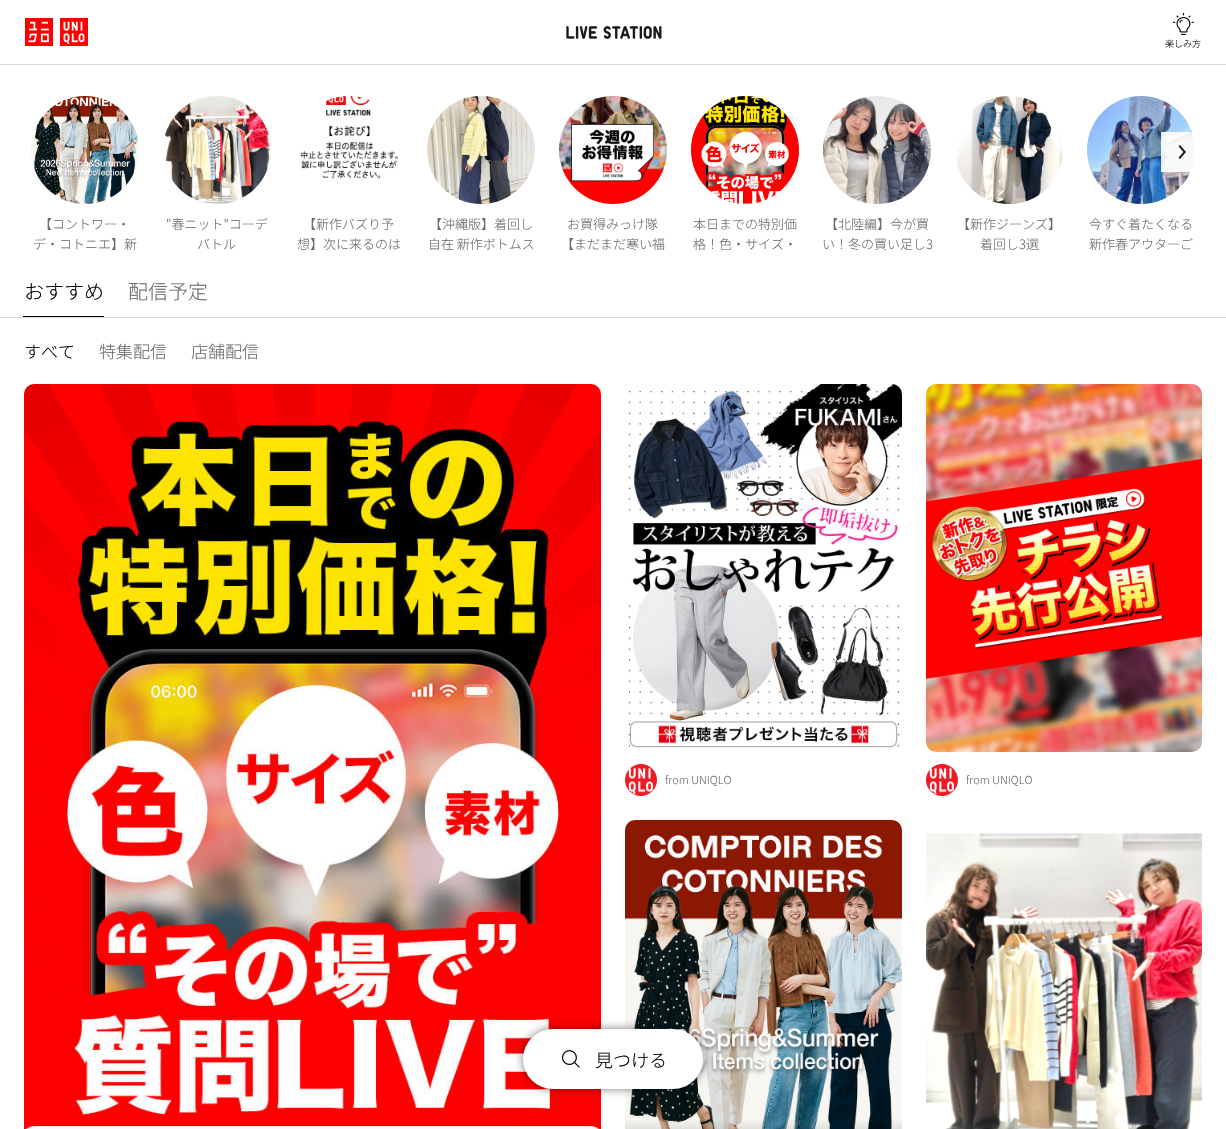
static SkFont makeFont(const char* family, int weight, float size, bool italic = false) {
  SkFontStyle style(weight, SkFontStyle::kNormal_Width,
    italic ? SkFontStyle::kItalic_Slant : SkFontStyle::kUpright_Slant);
  SkFont result(fontMgr->matchFamilyStyle(family, style), size);
  result.setSubpixel(true);
  return result;
}

static void text(SkCanvas* c, const char* s, float x, float y, const SkFont& font, SkColor color) {
  SkPaint ink(SkColor4f::FromColor(color));
  ink.setAntiAlias(true);
  c->drawString(s, x, y, font, ink);
}

static void box(SkCanvas* c, float l, float t, float r, float b, SkColor color) {
  SkPaint ink(SkColor4f::FromColor(color));
  ink.setAntiAlias(true);
  c->drawRect(SkRect::MakeLTRB(l, t, r, b), ink);
}

static void roundBox(SkCanvas* c, float l, float t, float r, float b, float radius, SkColor color) {
  SkPaint ink(SkColor4f::FromColor(color));
  ink.setAntiAlias(true);
  c->drawRoundRect(SkRect::MakeLTRB(l, t, r, b), radius, radius, ink);
}

static void picture(SkCanvas* c, const char* path, float l, float t, float r, float b) {
  auto image = SkImages::DeferredFromEncodedData(SkData::MakeFromFileName(path));
  c->drawImageRect(image, SkRect::MakeLTRB(l, t, r, b), SkSamplingOptions());
}

void draw(SkCanvas* c) {
  SkPaint paint;
  paint.setAntiAlias(true);
  c->clear(0xffffffff);
  box(c, 0, 64, 1226, 65, 0xffdadada);
  picture(c, "img_01.png", 25, 18, 88, 46);
  picture(c, "img_02.png", 566, 26, 662, 39);
  picture(c, "img_03.png", 1173, 13, 1194, 35);
  SkFont face1 = makeFont("Noto Sans CJK JP", 300, 9);
  text(c, "楽しみ方", 1165, 47, face1, 0xff000000);
  picture(c, "img_13.png", 1087, 96, 1195, 204);
  box(c, 1161, 132, 1195, 172, 0xe6ffffff);
  picture(c, "img_04.png", 1178, 145, 1186, 159);
  picture(c, "img_05.png", 31, 96, 139, 204);
  SkFont face2 = makeFont("Noto Sans CJK JP", 300, 13);
  text(c, "【コントワー・", 39, 229, face2, 0xff6a6a6a);
  text(c, "デ・コトニエ】新", 33, 249, face2, 0xff6a6a6a);
  picture(c, "img_06.png", 163, 96, 271, 204);
  text(c, "\"春ニット\"コーデ", 166, 229, face2, 0xff6a6a6a);
  text(c, "バトル", 197, 249, face2, 0xff6a6a6a);
  picture(c, "img_07.png", 300, 96, 399, 179);
  text(c, "【新作バズり予", 303, 229, face2, 0xff6a6a6a);
  text(c, "想】次に来るのは", 297, 249, face2, 0xff6a6a6a);
  picture(c, "img_08.png", 427, 96, 535, 204);
  text(c, "【沖縄版】着回し", 429, 229, face2, 0xff6a6a6a);
  text(c, "自在 新作ボトムス", 428, 249, face2, 0xff6a6a6a);
  picture(c, "img_09.png", 559, 96, 667, 204);
  text(c, "お買得みっけ隊", 567, 229, face2, 0xff6a6a6a);
  text(c, "【まだまだ寒い福", 561, 249, face2, 0xff6a6a6a);
  picture(c, "img_10.png", 691, 96, 799, 204);
  text(c, "本日までの特別価", 693, 229, face2, 0xff6a6a6a);
  text(c, "格！色・サイズ・", 693, 249, face2, 0xff6a6a6a);
  picture(c, "img_11.png", 823, 96, 931, 204);
  text(c, "【北陸編】今が買", 825, 229, face2, 0xff6a6a6a);
  text(c, "い！冬の買い足し3", 822, 249, face2, 0xff6a6a6a);
  picture(c, "img_12.png", 955, 96, 1063, 204);
  text(c, "【新作ジーンズ】", 957, 229, face2, 0xff6a6a6a);
  text(c, "着回し3選", 980, 249, face2, 0xff6a6a6a);
  text(c, "今すぐ着たくなる", 1089, 229, face2, 0xff6a6a6a);
  text(c, "新作春アウターご", 1089, 249, face2, 0xff6a6a6a);
  box(c, 0, 317, 1226, 318, 0xffdadada);
  SkFont face3 = makeFont("Noto Sans CJK JP", 300, 20);
  text(c, "おすすめ", 24, 299, face3, 0xff000000);
  box(c, 23, 316, 104, 317, 0xff000000);
  text(c, "配信予定", 128, 299, face3, 0xff6a6a6a);
  SkFont face4 = makeFont("Noto Sans CJK JP", 300, 17);
  text(c, "すべて", 24, 358, face4, 0xff000000);
  text(c, "特集配信", 99, 358, face4, 0xff6a6a6a);
  text(c, "店舗配信", 191, 358, face4, 0xff6a6a6a);
  picture(c, "img_14.png", 24, 384, 601, 1129);
  picture(c, "img_15.png", 628, 384, 902, 748);
  picture(c, "img_16.png", 625, 764, 657, 796);
  SkFont face5 = makeFont("Noto Sans CJK JP", 300, 11);
  text(c, "from UNIQLO", 665, 784, face5, 0xff6a6a6a);
  picture(c, "img_17.png", 926, 384, 1202, 752);
  picture(c, "img_18.png", 926, 764, 958, 796);
  text(c, "from UNIQLO", 966, 784, face5, 0xff6a6a6a);
  picture(c, "img_19.png", 625, 820, 902, 1129);
  picture(c, "img_20.png", 926, 833, 1202, 1129);
  paint.setColor(0x80000000);
  paint.setMaskFilter(SkMaskFilter::MakeBlur(kNormal_SkBlurStyle, 5));
  c->drawRoundRect(SkRect::MakeLTRB(523, 1029, 703, 1089), 30, 30, paint);
  paint.setMaskFilter(nullptr);
  roundBox(c, 523, 1029, 703, 1089, 30, 0xffffffff);
  picture(c, "img_21.png", 562, 1050, 580, 1068);
  SkFont face6 = makeFont("Noto Sans CJK JP", 300, 18);
  text(c, "見つける", 595, 1067, face6, 0xff000000);
}
